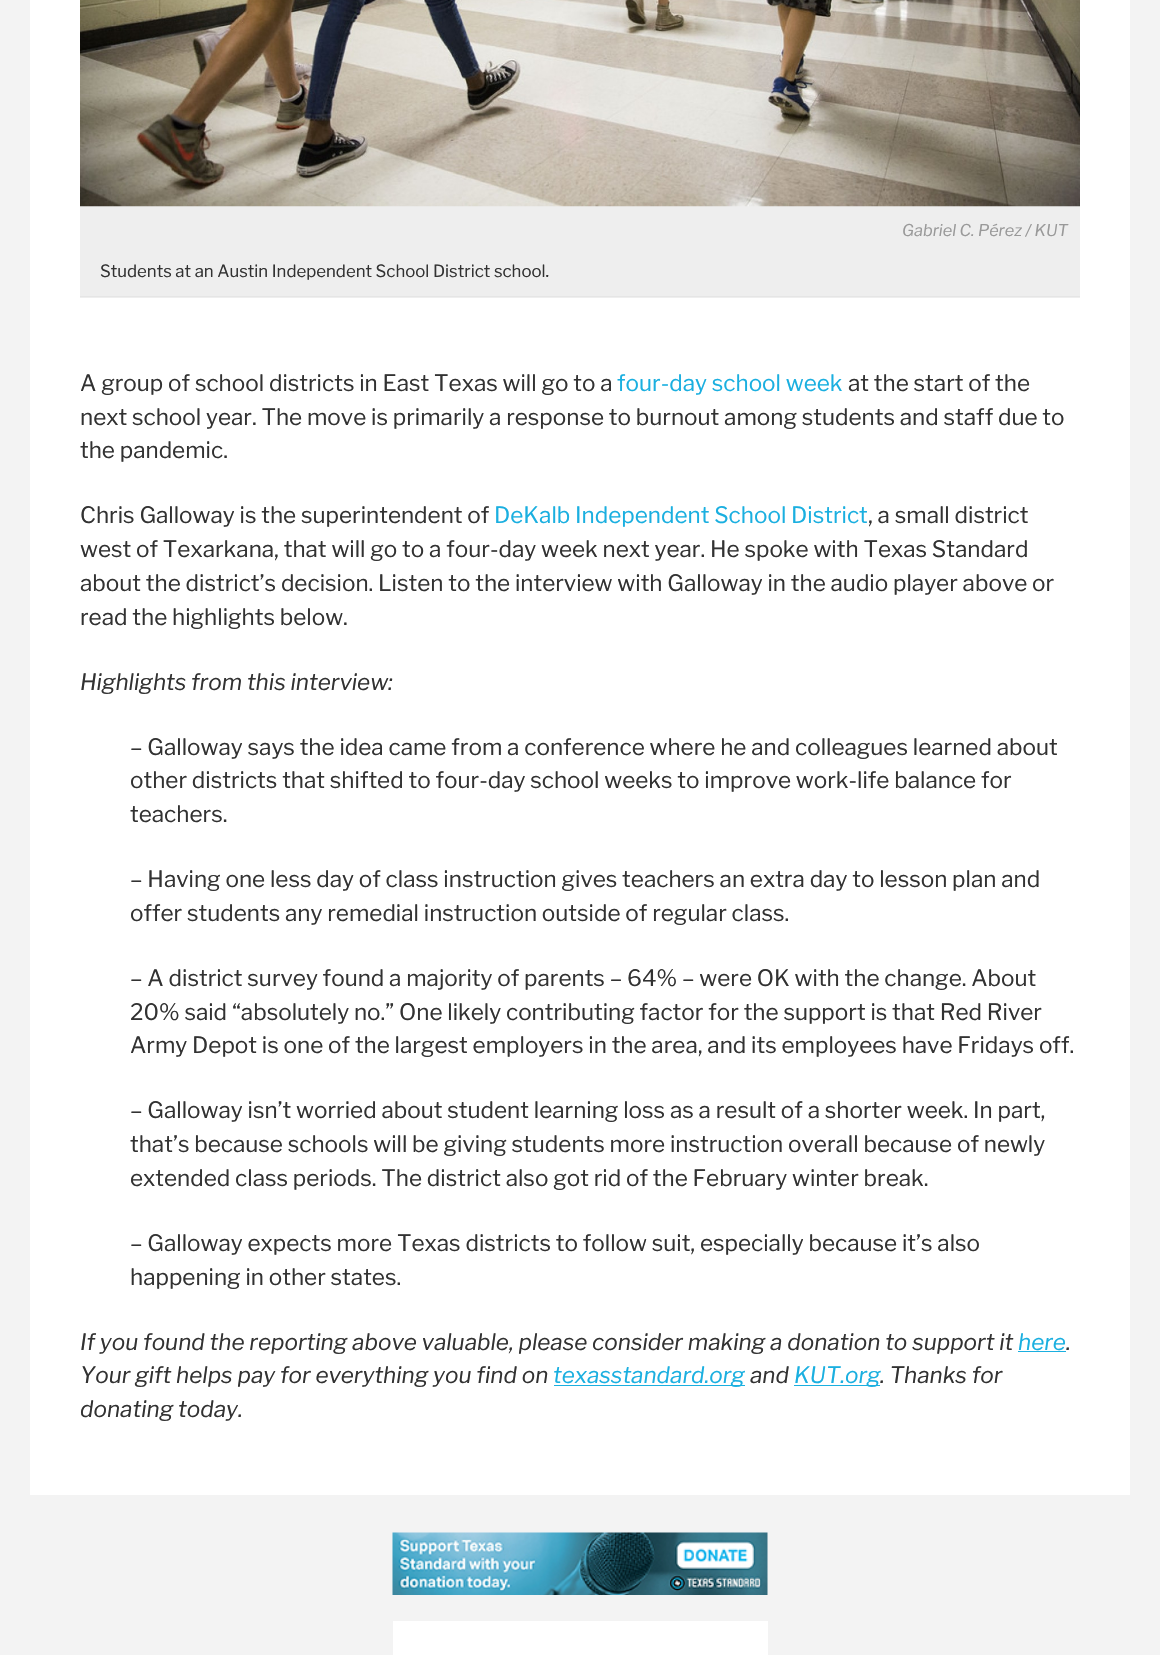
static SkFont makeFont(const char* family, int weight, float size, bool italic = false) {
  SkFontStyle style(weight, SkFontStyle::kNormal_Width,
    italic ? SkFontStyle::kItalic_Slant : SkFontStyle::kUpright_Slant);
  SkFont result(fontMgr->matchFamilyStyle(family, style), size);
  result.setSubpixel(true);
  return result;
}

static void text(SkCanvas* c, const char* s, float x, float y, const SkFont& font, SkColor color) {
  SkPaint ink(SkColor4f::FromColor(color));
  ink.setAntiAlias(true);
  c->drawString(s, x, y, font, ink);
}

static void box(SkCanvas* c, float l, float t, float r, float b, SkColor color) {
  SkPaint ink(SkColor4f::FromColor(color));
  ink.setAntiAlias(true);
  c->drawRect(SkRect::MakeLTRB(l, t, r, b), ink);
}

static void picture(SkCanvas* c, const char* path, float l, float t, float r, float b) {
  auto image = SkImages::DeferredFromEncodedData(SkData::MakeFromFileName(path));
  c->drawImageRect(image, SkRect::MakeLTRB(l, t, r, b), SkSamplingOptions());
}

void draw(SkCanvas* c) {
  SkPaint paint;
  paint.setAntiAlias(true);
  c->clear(0xfff3f3f3);
  box(c, 30, 0, 1130, 1495, 0xffffffff);
  box(c, 80, 206, 1080, 298, 0xffeeeeee);
  picture(c, "img_01.png", 80, 0, 1080, 207);
  box(c, 80, 296, 1080, 297, 0xffe5e5e5);
  SkFont face1 = makeFont("Libre Franklin", 100, 16.25f, true);
  text(c, "Gabriel C. Pérez / KUT", 902, 236, face1, 0xff999999);
  SkFont face2 = makeFont("Libre Franklin", 400, 16.8f);
  text(c, "Students at an Austin Independent School District school.", 100, 277, face2, 0xff323232);
  SkFont face3 = makeFont("Libre Franklin", 400, 22.5f);
  text(c, "A group of school districts in East Texas will go to a", 80, 391, face3, 0xff323232);
  text(c, "four-day school week", 617, 391, face3, 0xff1aafe0);
  text(c, "at the start of the", 848, 391, face3, 0xff323232);
  text(c, "next school year. The move is primarily a response to burnout among students and staff due to", 80, 425, face3, 0xff323232);
  text(c, "the pandemic.", 80, 458, face3, 0xff323232);
  text(c, "Chris Galloway is the superintendent of", 80, 523, face3, 0xff323232);
  text(c, "DeKalb Independent School District", 494, 523, face3, 0xff1aafe0);
  text(c, ", a small district", 868, 523, face3, 0xff323232);
  text(c, "west of Texarkana, that will go to a four-day week next year. He spoke with Texas Standard", 80, 557, face3, 0xff323232);
  text(c, "about the district’s decision. Listen to the interview with Galloway in the audio player above or", 80, 591, face3, 0xff323232);
  text(c, "read the highlights below.", 80, 625, face3, 0xff323232);
  SkFont face4 = makeFont("Libre Franklin", 100, 22.5f, true);
  text(c, "Highlights from this interview:", 80, 690, face4, 0xff323232);
  text(c, "– Galloway says the idea came from a conference where he and colleagues learned about", 130, 755, face3, 0xff323232);
  text(c, "other districts that shifted to four-day school weeks to improve work-life balance for", 130, 788, face3, 0xff323232);
  text(c, "teachers.", 130, 822, face3, 0xff323232);
  text(c, "– Having one less day of class instruction gives teachers an extra day to lesson plan and", 130, 887, face3, 0xff323232);
  text(c, "offer students any remedial instruction outside of regular class.", 130, 921, face3, 0xff323232);
  text(c, "– A district survey found a majority of parents – 64% – were OK with the change. About", 130, 986, face3, 0xff323232);
  text(c, "20% said “absolutely no.” One likely contributing factor for the support is that Red River", 130, 1020, face3, 0xff323232);
  text(c, "Army Depot is one of the largest employers in the area, and its employees have Fridays off.", 130, 1053, face3, 0xff323232);
  text(c, "– Galloway isn’t worried about student learning loss as a result of a shorter week. In part,", 130, 1118, face3, 0xff323232);
  text(c, "that’s because schools will be giving students more instruction overall because of newly", 130, 1152, face3, 0xff323232);
  text(c, "extended class periods. The district also got rid of the February winter break.", 130, 1186, face3, 0xff323232);
  text(c, "– Galloway expects more Texas districts to follow suit, especially because it’s also", 130, 1251, face3, 0xff323232);
  text(c, "happening in other states.", 130, 1285, face3, 0xff323232);
  text(c, "If you found the reporting above valuable, please consider making a donation to support it", 80, 1350, face4, 0xff323232);
  text(c, "here", 1018, 1350, face4, 0xff1aafe0);
  text(c, ".", 1066, 1350, face4, 0xff323232);
  box(c, 1018, 1351, 1066, 1352, 0xff1aafe0);
  text(c, "Your gift helps pay for everything you find on", 80, 1383, face4, 0xff323232);
  box(c, 554, 1385, 745, 1386, 0xff1aafe0);
  text(c, "texasstandard.org", 553, 1383, face4, 0xff1aafe0);
  text(c, "and", 750, 1383, face4, 0xff323232);
  box(c, 794, 1385, 880, 1386, 0xff1aafe0);
  text(c, "KUT.org", 794, 1383, face4, 0xff1aafe0);
  text(c, ". Thanks for", 880, 1383, face4, 0xff323232);
  text(c, "donating today.", 80, 1417, face4, 0xff323232);
  picture(c, "img_02.png", 392, 1532, 768, 1595);
  box(c, 393, 1621, 768, 1655, 0xffffffff);
}
